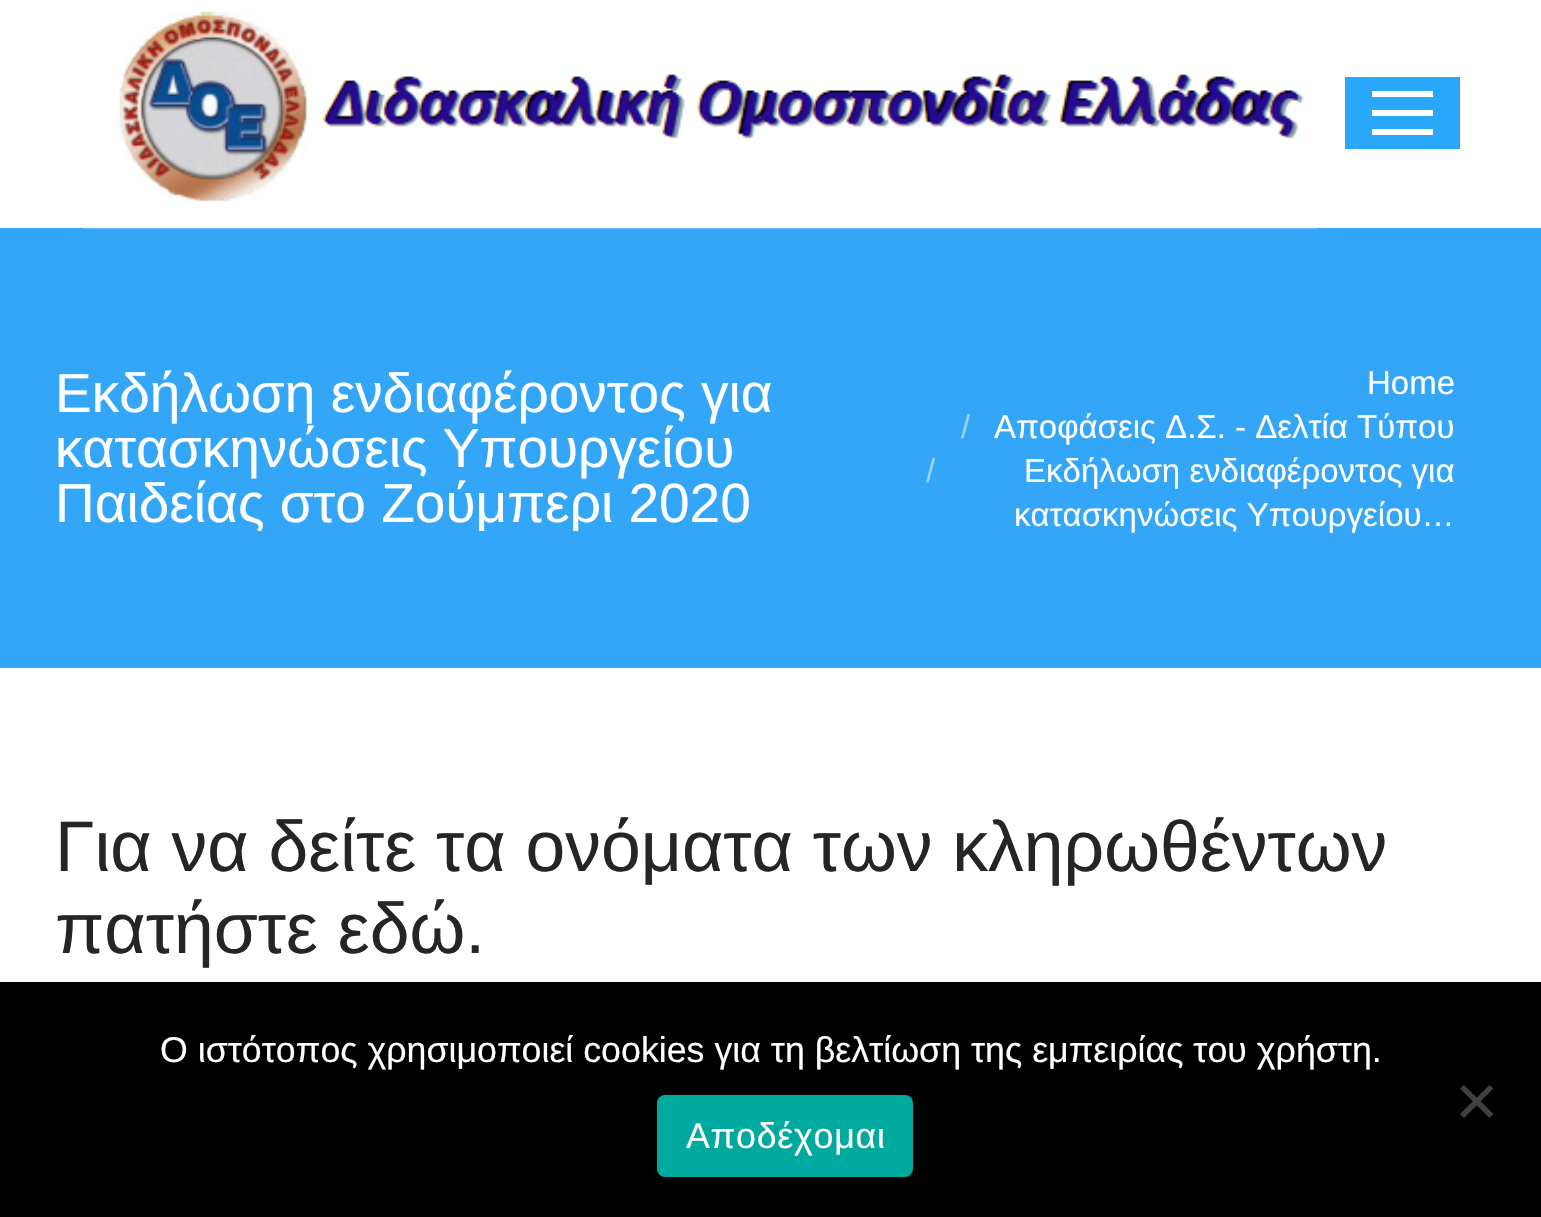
static SkFont makeFont(const char* family, int weight, float size, bool italic = false) {
  SkFontStyle style(weight, SkFontStyle::kNormal_Width,
    italic ? SkFontStyle::kItalic_Slant : SkFontStyle::kUpright_Slant);
  SkFont result(fontMgr->matchFamilyStyle(family, style), size);
  result.setSubpixel(true);
  return result;
}

static void text(SkCanvas* c, const char* s, float x, float y, const SkFont& font, SkColor color) {
  SkPaint ink(SkColor4f::FromColor(color));
  ink.setAntiAlias(true);
  c->drawString(s, x, y, font, ink);
}

static void spacedText(SkCanvas* c, const char* s, float x, float y, const SkFont& font, const SkPaint& ink, float letter, float word) {
  std::vector<SkGlyphID> glyphs(font.countText(s, strlen(s), SkTextEncoding::kUTF8));
  std::vector<float> xs(glyphs.size());
  font.textToGlyphs(s, strlen(s), SkTextEncoding::kUTF8, glyphs);
  font.getXPos(glyphs, xs, x);
  float extra = 0;
  for (size_t i = 0; i < glyphs.size(); i++) {
    xs[i] += extra;
    extra += letter + word * (glyphs[i] == font.unicharToGlyph(' '));
  }
  c->drawTextBlob(SkTextBlob::MakeFromPosHGlyphs(glyphs, xs, y, font), 0, 0, ink);
}

static void box(SkCanvas* c, float l, float t, float r, float b, SkColor color) {
  SkPaint ink(SkColor4f::FromColor(color));
  ink.setAntiAlias(true);
  c->drawRect(SkRect::MakeLTRB(l, t, r, b), ink);
}

static void roundBox(SkCanvas* c, float l, float t, float r, float b, float radius, SkColor color) {
  SkPaint ink(SkColor4f::FromColor(color));
  ink.setAntiAlias(true);
  c->drawRoundRect(SkRect::MakeLTRB(l, t, r, b), radius, radius, ink);
}

static void picture(SkCanvas* c, const char* path, float l, float t, float r, float b) {
  auto image = SkImages::DeferredFromEncodedData(SkData::MakeFromFileName(path));
  c->drawImageRect(image, SkRect::MakeLTRB(l, t, r, b), SkSamplingOptions());
}

void draw(SkCanvas* c) {
  SkPaint paint;
  paint.setAntiAlias(true);
  c->clear(0xffffffff);
  box(c, 0, 228, 1541, 668, 0xff34a6f7);
  picture(c, "img_01.png", 82, 11, 1318, 229);
  box(c, 1345, 77, 1460, 149, 0xff28a7fb);
  box(c, 1372, 91, 1433, 97, 0xffffffff);
  box(c, 1372, 110, 1433, 116, 0xffffffff);
  box(c, 1372, 129, 1433, 135, 0xffffffff);
  SkFont face1 = makeFont("Liberation Sans", 400, 55);
  text(c, "Εκδήλωση ενδιαφέροντος για", 55, 412, face1, 0xffffffff);
  text(c, "κατασκηνώσεις Υπουργείου", 55, 467, face1, 0xffffffff);
  c->save();
  c->clipRect(SkRect::MakeLTRB(55, 366, 872, 531));
  text(c, "Παιδείας στο Ζούμπερι 2020", 55, 522, face1, 0xffffffff);
  c->restore();
  SkFont face2 = makeFont("Liberation Sans", 400, 33);
  text(c, "Home", 1367, 394, face2, 0xffffffff);
  text(c, "/", 961, 438, face2, 0xff9ad3fb);
  text(c, "Αποφάσεις Δ.Σ. - Δελτία Τύπου", 994, 438, face2, 0xffffffff);
  text(c, "/", 926, 482, face2, 0xff9ad3fb);
  text(c, "Εκδήλωση ενδιαφέροντος για", 1024, 482, face2, 0xffffffff);
  text(c, "κατασκηνώσεις Υπουργείου…", 1014, 526, face2, 0xffffffff);
  SkFont face3 = makeFont("Liberation Sans", 400, 71.5f);
  text(c, "Για να δείτε τα ονόματα των κληρωθέντων", 55, 871, face3, 0xff252525);
  text(c, "πατήστε εδώ.", 55, 953, face3, 0xff252525);
  box(c, 0, 982, 1541, 1217, 0xff000000);
  SkFont face4 = makeFont("Liberation Sans", 400, 35.75f);
  text(c, "Ο ιστότοπος χρησιμοποιεί cookies για τη βελτίωση της εμπειρίας του χρήστη.", 160, 1062, face4, 0xffffffff);
  paint.setColor(0xff404040);
  c->drawPath(SkPathBuilder().moveTo(1489.5f, 1085).lineTo(1493.5f, 1088.5f).lineTo(1464, 1118).lineTo(1460, 1114).close().detach(), paint);
  c->drawPath(SkPathBuilder().moveTo(1460, 1088.5f).lineTo(1464, 1085).lineTo(1493.5f, 1114).lineTo(1489.5f, 1118).close().detach(), paint);
  roundBox(c, 657, 1095, 913, 1177, 8, 0xff00a99d);
  paint.setColor(0xffffffff);
  spacedText(c, "Αποδέχομαι", 686, 1148, face4, paint, 0.75f, 0);
}
